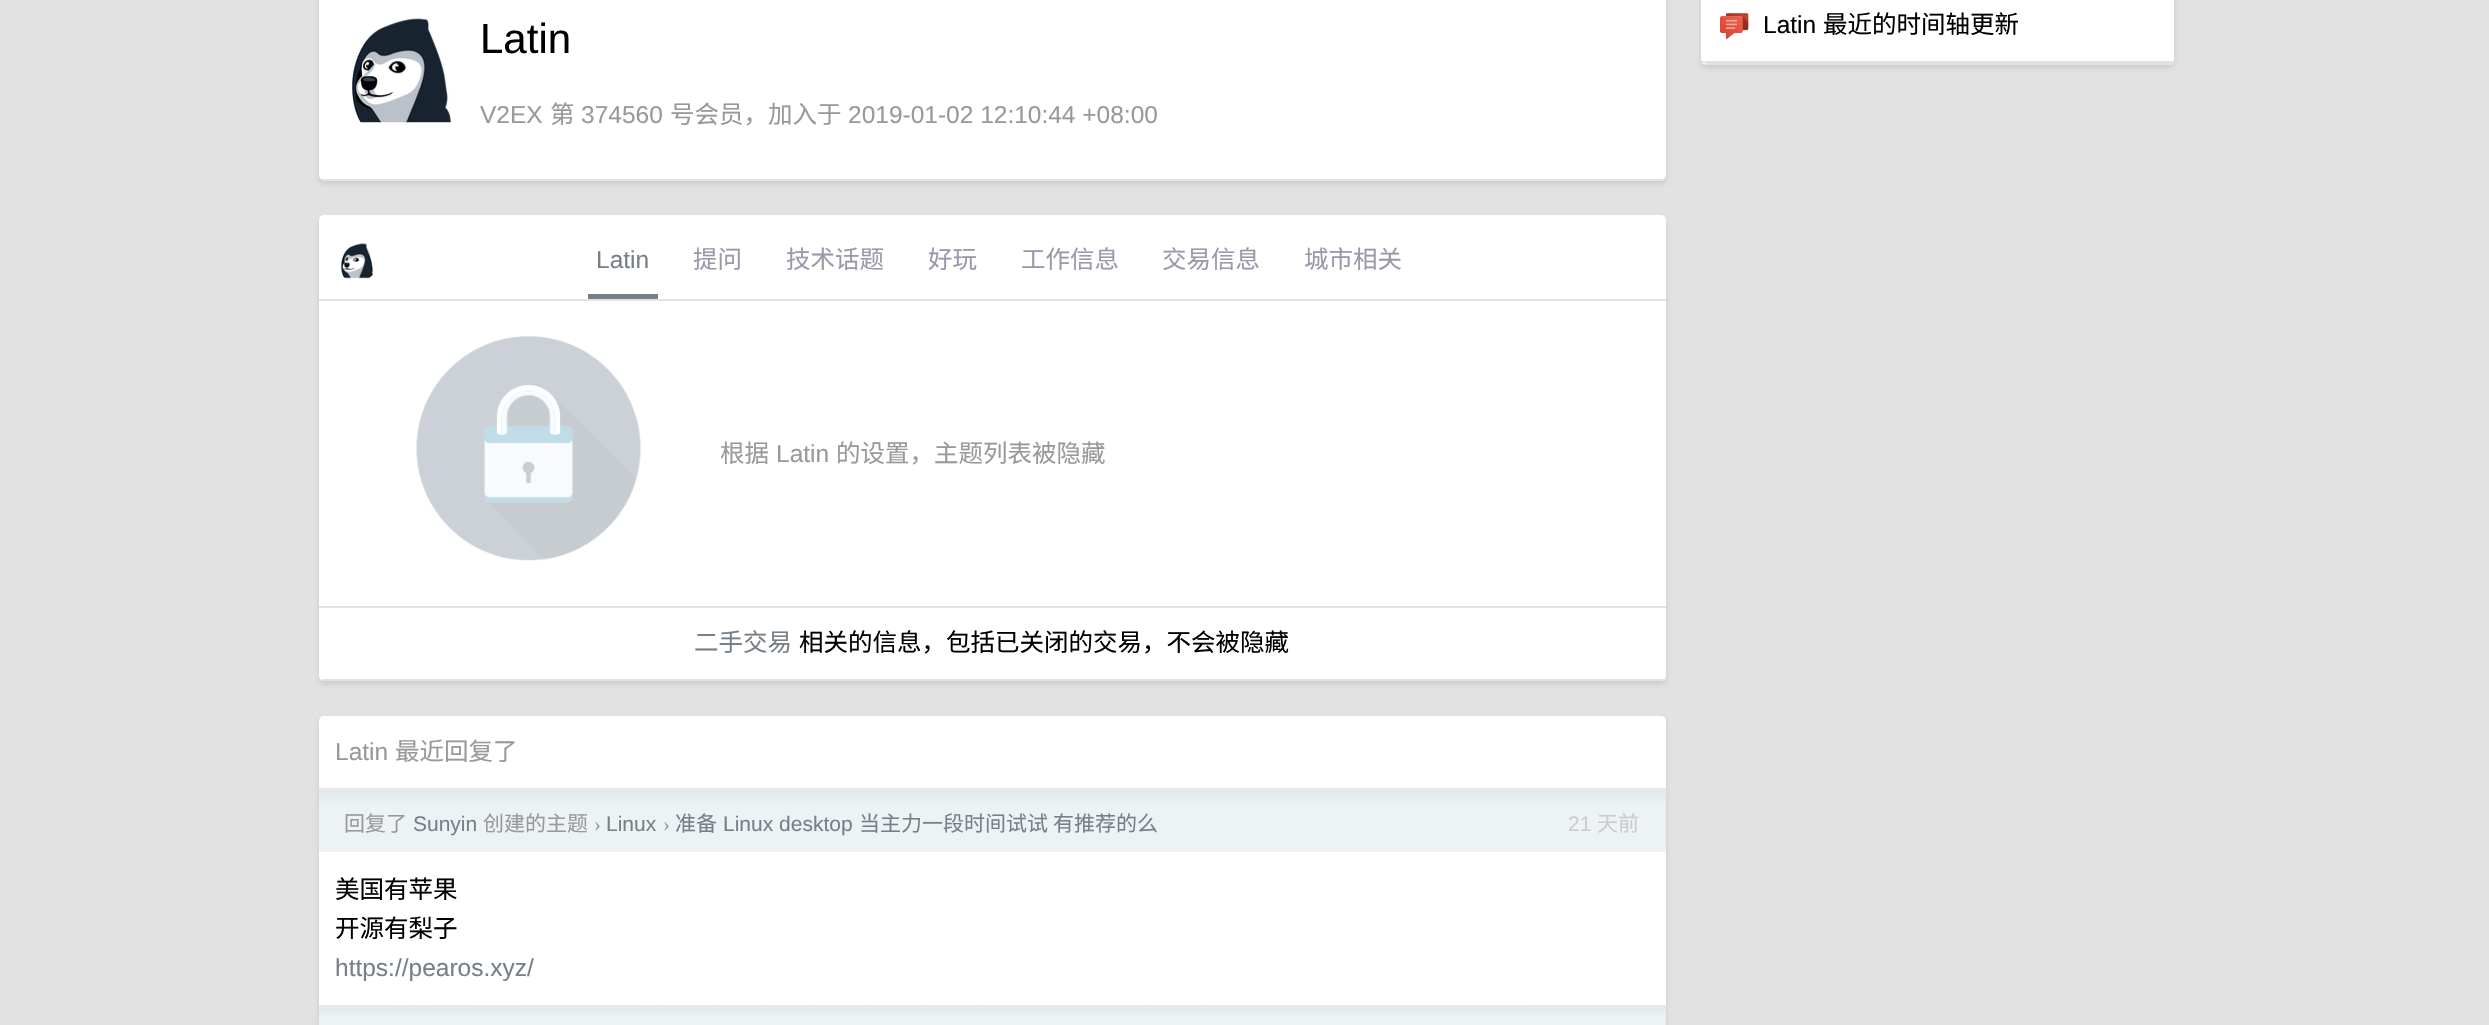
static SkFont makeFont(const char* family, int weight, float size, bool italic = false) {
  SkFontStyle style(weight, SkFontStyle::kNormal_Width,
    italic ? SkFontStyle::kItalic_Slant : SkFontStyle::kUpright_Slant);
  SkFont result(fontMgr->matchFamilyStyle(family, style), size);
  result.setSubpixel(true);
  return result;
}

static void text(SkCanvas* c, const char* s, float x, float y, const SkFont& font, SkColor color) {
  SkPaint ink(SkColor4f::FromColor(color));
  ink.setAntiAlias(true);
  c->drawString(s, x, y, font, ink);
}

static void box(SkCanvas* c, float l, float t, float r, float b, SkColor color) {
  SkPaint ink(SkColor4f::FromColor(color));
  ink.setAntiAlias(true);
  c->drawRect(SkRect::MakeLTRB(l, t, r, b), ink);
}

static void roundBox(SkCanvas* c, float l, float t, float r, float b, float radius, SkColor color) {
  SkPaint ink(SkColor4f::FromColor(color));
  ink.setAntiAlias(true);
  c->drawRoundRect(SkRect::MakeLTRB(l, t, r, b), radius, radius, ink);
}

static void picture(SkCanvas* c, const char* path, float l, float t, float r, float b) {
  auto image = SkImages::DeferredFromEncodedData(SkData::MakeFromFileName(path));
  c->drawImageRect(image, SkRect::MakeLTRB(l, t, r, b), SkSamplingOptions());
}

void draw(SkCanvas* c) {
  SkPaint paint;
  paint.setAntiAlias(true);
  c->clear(0xffe2e2e2);
  paint.setColor(0x1a000000);
  paint.setMaskFilter(SkMaskFilter::MakeBlur(kNormal_SkBlurStyle, 2.5f));
  c->drawRoundRect(SkRect::MakeLTRB(319, -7, 1666, 184), 5, 5, paint);
  paint.setMaskFilter(nullptr);
  roundBox(c, 319, -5, 1666, 180, 5, 0xffffffff);
  box(c, 322, 179, 1664, 181, 0xffe2e2e2);
  picture(c, "img_01.png", 352, 18, 451, 123);
  SkFont face1 = makeFont("Liberation Sans", 400, 42);
  text(c, "Latin", 480, 53, face1, 0xff000000);
  SkFont face2 = makeFont("Liberation Sans", 400, 24.5f);
  text(c, "V2EX", 480, 123, face2, 0xff999999);
  SkFont face3 = makeFont("Noto Sans CJK SC", 400, 24.5f);
  text(c, "第", 550, 123, face3, 0xff999999);
  text(c, "374560", 581, 123, face2, 0xff999999);
  text(c, "号会员，加入于", 670, 123, face3, 0xff999999);
  text(c, "2019-01-02 12:10:44 +08:00", 848, 123, face2, 0xff999999);
  paint.setMaskFilter(SkMaskFilter::MakeBlur(kNormal_SkBlurStyle, 2.5f));
  c->drawRoundRect(SkRect::MakeLTRB(319, 219, 1666, 684), 5, 5, paint);
  paint.setMaskFilter(nullptr);
  roundBox(c, 319, 215, 1666, 681, 5, 0xffffffff);
  box(c, 322, 679, 1664, 681, 0xffe2e2e2);
  box(c, 319, 299, 1666, 301, 0xffe2e2e2);
  picture(c, "img_02.png", 341, 243, 373, 279);
  box(c, 588, 294, 658, 299, 0xff778087);
  text(c, "Latin", 596, 268, face2, 0xff778087);
  text(c, "提问", 693, 268, face3, 0xff9999aa);
  text(c, "技术话题", 786, 268, face3, 0xff9999aa);
  text(c, "好玩", 928, 268, face3, 0xff9999aa);
  text(c, "工作信息", 1021, 268, face3, 0xff9999aa);
  text(c, "交易信息", 1162, 268, face3, 0xff9999aa);
  text(c, "城市相关", 1304, 268, face3, 0xff9999aa);
  box(c, 319, 606, 1666, 608, 0xffe2e2e2);
  picture(c, "img_03.png", 416, 336, 641, 561);
  text(c, "根据", 720, 462, face3, 0xff999999);
  text(c, "Latin", 776, 462, face2, 0xff999999);
  text(c, "的设置，主题列表被隐藏", 836, 462, face3, 0xff999999);
  text(c, "二手交易", 694, 651, face3, 0xff778087);
  text(c, "相关的信息，包括已关闭的交易，不会被隐藏", 799, 651, face3, 0xff000000);
  paint.setMaskFilter(SkMaskFilter::MakeBlur(kNormal_SkBlurStyle, 2.5f));
  c->drawRoundRect(SkRect::MakeLTRB(319, 719, 1666, 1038), 5, 5, paint);
  paint.setMaskFilter(nullptr);
  roundBox(c, 319, 716, 1666, 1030, 5, 0xffffffff);
  box(c, 319, 788, 1666, 789, 0xffe2e2e2);
  text(c, "Latin", 335, 760, face2, 0xff999999);
  text(c, "最近回复了", 395, 760, face3, 0xff999999);
  box(c, 319, 789, 1666, 852, 0xffedf3f5);
  picture(c, "img_04.png", 318, 789, 1666, 801);
  SkFont face4 = makeFont("Noto Sans CJK SC", 400, 21);
  text(c, "回复了", 344, 831, face4, 0xff999999);
  SkFont face5 = makeFont("Liberation Sans", 400, 21);
  text(c, "Sunyin", 413, 831, face5, 0xff778087);
  text(c, "创建的主题", 483, 831, face4, 0xff999999);
  SkFont face6 = makeFont("Liberation Serif", 400, 21);
  text(c, "›", 594, 831, face6, 0xff999999);
  text(c, "Linux", 606, 831, face5, 0xff778087);
  text(c, "›", 663, 831, face6, 0xff999999);
  text(c, "准备", 675, 831, face4, 0xff778087);
  text(c, "Linux desktop", 723, 831, face5, 0xff778087);
  text(c, "当主力一段时间试试", 859, 831, face4, 0xff778087);
  text(c, "有推荐的么", 1053, 831, face4, 0xff778087);
  text(c, "21", 1568, 831, face5, 0xffcccccc);
  text(c, "天前", 1597, 831, face4, 0xffcccccc);
  text(c, "美国有苹果", 335, 898, face3, 0xff000000);
  text(c, "开源有梨子", 335, 937, face3, 0xff000000);
  text(c, "https://pearos.xyz/", 335, 976, face2, 0xff778087);
  box(c, 319, 1005, 1666, 1025, 0xffedf3f5);
  picture(c, "img_05.png", 318, 1005, 1666, 1015);
  paint.setMaskFilter(SkMaskFilter::MakeBlur(kNormal_SkBlurStyle, 2.5f));
  c->drawRoundRect(SkRect::MakeLTRB(1701, -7, 2174, 68), 5, 5, paint);
  paint.setMaskFilter(nullptr);
  roundBox(c, 1701, -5, 2174, 65, 5, 0xffffffff);
  box(c, 1705, 63, 2172, 65, 0xffe2e2e2);
  box(c, 1701, 61, 2174, 63, 0xffe2e2e2);
  picture(c, "img_06.png", 1720, 13, 1749, 40);
  text(c, "Latin", 1763, 33, face2, 0xff000000);
  text(c, "最近的时间轴更新", 1823, 33, face3, 0xff000000);
}
